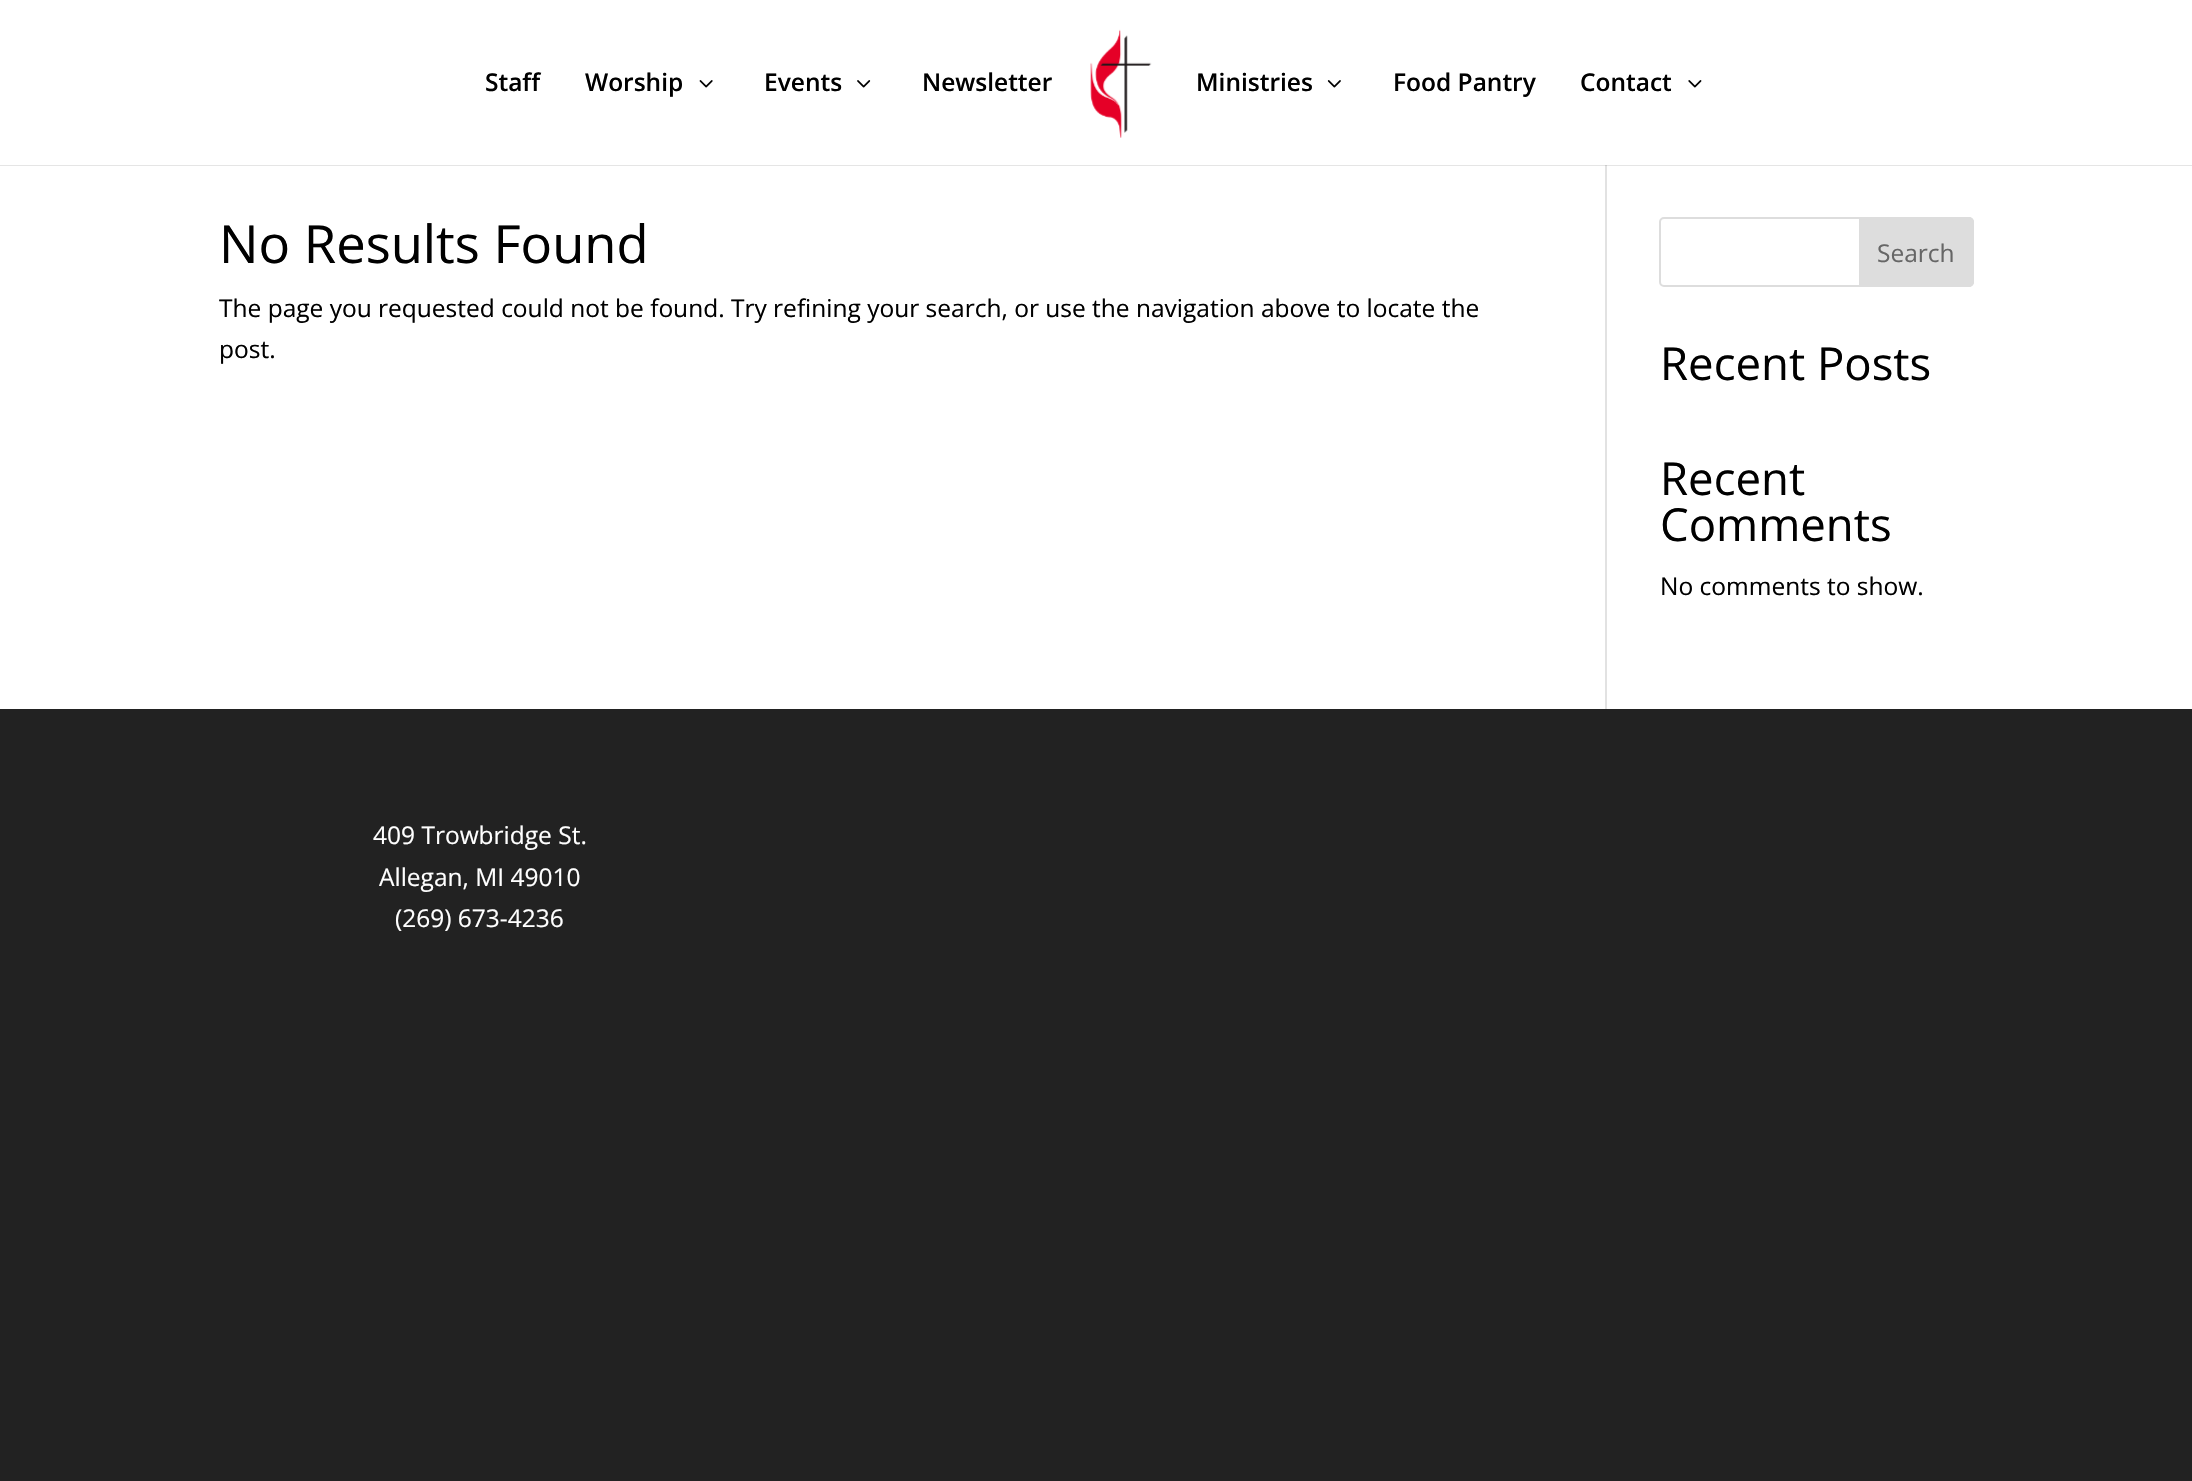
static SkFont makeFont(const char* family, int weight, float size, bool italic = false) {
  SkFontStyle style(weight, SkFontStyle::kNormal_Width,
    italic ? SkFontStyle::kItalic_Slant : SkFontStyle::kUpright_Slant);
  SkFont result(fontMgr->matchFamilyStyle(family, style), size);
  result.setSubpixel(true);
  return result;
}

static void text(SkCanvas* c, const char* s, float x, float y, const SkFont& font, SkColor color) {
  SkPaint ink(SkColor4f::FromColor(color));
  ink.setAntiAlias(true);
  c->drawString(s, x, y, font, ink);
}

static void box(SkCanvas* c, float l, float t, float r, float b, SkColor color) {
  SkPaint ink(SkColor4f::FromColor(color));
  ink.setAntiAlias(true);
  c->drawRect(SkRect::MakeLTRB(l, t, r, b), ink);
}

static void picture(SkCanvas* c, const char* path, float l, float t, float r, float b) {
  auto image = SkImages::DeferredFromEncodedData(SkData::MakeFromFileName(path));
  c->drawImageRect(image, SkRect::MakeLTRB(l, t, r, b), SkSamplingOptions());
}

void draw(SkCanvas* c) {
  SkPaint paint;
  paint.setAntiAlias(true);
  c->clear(0xffffffff);
  box(c, 1605, 165, 1607, 709, 0xffe2e2e2);
  paint.setColor(0x1a000000);
  c->drawPath(SkPathBuilder().moveTo(0, 164).lineTo(0, 166).lineTo(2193, 166).lineTo(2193, 2).lineTo(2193, 164).close().detach(), paint);
  box(c, 0, 164, 2192, 165, 0xffffffff);
  SkFont face1 = makeFont("Open Sans", 600, 24.5f);
  text(c, "Staff", 485, 91, face1, 0xff000000);
  text(c, "Worship", 585, 91, face1, 0xff000000);
  picture(c, "img_01.png", 699, 80, 713, 88);
  text(c, "Events", 764, 91, face1, 0xff000000);
  picture(c, "img_02.png", 857, 80, 871, 88);
  text(c, "Newsletter", 922, 91, face1, 0xff000000);
  picture(c, "img_03.png", 1090, 29, 1152, 138);
  text(c, "Ministries", 1196, 91, face1, 0xff000000);
  picture(c, "img_04.png", 1327, 80, 1341, 88);
  text(c, "Food Pantry", 1393, 91, face1, 0xff000000);
  text(c, "Contact", 1580, 91, face1, 0xff000000);
  picture(c, "img_05.png", 1688, 80, 1702, 88);
  SkFont face2 = makeFont("Open Sans", 400, 52.5f);
  text(c, "No Results Found", 219, 263, face2, 0xff000000);
  SkFont face3 = makeFont("Open Sans", 400, 24.5f);
  text(c, "The page you requested could not be found. Try refining your search, or use the navigation above to locate the", 219, 317, face3, 0xff000000);
  text(c, "post.", 219, 358, face3, 0xff000000);
  paint.setStyle(SkPaint::kStroke_Style);
  paint.setStrokeWidth(2);
  paint.setColor(0xffdddddd);
  c->drawRoundRect(SkRect::MakeLTRB(1660, 218, 1973, 286), 4, 4, paint);
  paint.setStyle(SkPaint::kFill_Style);
  c->drawPath(SkPathBuilder().moveTo(1860, 218).lineTo(1969, 218).cubicTo(1971, 218, 1973, 220, 1973, 222).lineTo(1973, 282).cubicTo(1973, 284, 1971, 286, 1969, 286).lineTo(1860, 286).close().detach(), paint);
  paint.setStyle(SkPaint::kStroke_Style);
  c->drawPath(SkPathBuilder().moveTo(1860, 218).lineTo(1969, 218).cubicTo(1971, 218, 1973, 220, 1973, 222).lineTo(1973, 282).cubicTo(1973, 284, 1971, 286, 1969, 286).lineTo(1860, 286).close().detach(), paint);
  text(c, "Search", 1877, 262, face3, 0xff666666);
  SkFont face4 = makeFont("Open Sans", 400, 45.5f);
  text(c, "Recent Posts", 1660, 380, face4, 0xff000000);
  text(c, "Recent", 1660, 495, face4, 0xff000000);
  text(c, "Comments", 1660, 541, face4, 0xff000000);
  text(c, "No comments to show.", 1660, 595, face3, 0xff000000);
  box(c, 0, 709, 2192, 1481, 0xff222222);
  text(c, "409 Trowbridge St.", 373, 844, face3, 0xffffffff);
  text(c, "Allegan, MI 49010", 379, 886, face3, 0xffffffff);
  text(c, "(269) 673-4236", 395, 927, face3, 0xffffffff);
}
